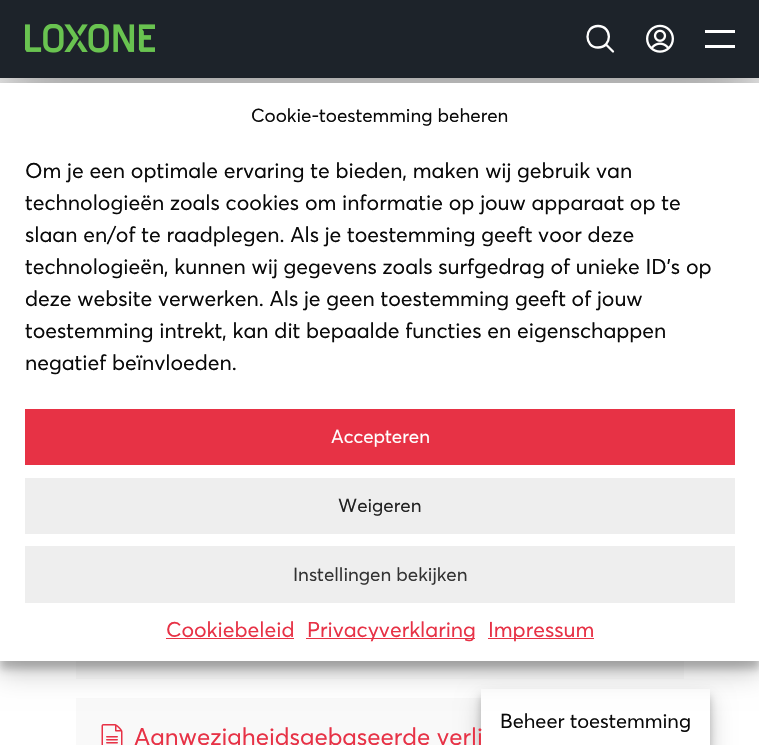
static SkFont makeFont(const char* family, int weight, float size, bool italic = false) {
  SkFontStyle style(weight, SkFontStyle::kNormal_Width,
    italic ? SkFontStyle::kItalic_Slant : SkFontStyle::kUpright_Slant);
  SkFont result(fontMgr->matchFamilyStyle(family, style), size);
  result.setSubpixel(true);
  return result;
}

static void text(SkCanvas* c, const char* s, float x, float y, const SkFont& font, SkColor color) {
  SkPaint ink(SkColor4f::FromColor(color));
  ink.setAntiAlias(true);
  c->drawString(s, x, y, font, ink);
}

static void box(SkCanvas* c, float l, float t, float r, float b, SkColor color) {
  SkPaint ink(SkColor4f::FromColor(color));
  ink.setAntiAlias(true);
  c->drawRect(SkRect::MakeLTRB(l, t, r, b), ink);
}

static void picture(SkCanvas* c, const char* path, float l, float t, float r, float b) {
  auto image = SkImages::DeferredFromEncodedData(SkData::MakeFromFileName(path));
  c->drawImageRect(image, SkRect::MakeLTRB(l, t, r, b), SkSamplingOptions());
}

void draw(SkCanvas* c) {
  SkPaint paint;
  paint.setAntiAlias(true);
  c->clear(0xffffffff);
  paint.setColor(0x99000000);
  paint.setMaskFilter(SkMaskFilter::MakeBlur(kNormal_SkBlurStyle, 35));
  c->drawRect(SkRect::MakeLTRB(0, 0, 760, 78), paint);
  paint.setMaskFilter(nullptr);
  box(c, 0, 0, 759, 78, 0xff1d232a);
  box(c, 76, 661, 684, 679, 0xfff9f9f9);
  paint.setColor(0x3b000000);
  paint.setMaskFilter(SkMaskFilter::MakeBlur(kNormal_SkBlurStyle, 4));
  c->drawRect(SkRect::MakeLTRB(0, 90, 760, 669), paint);
  paint.setMaskFilter(nullptr);
  box(c, 76, 698, 481, 745, 0xfff9f9f9);
  paint.setMaskFilter(SkMaskFilter::MakeBlur(kNormal_SkBlurStyle, 4));
  c->drawRect(SkRect::MakeLTRB(481, 696, 710, 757), paint);
  paint.setMaskFilter(nullptr);
  paint.setColor(0x30000000);
  paint.setMaskFilter(SkMaskFilter::MakeBlur(kNormal_SkBlurStyle, 12.5f));
  c->drawRect(SkRect::MakeLTRB(481, 701, 710, 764), paint);
  paint.setMaskFilter(nullptr);
  box(c, 481, 689, 710, 745, 0xffffffff);
  paint.setMaskFilter(SkMaskFilter::MakeBlur(kNormal_SkBlurStyle, 12.5f));
  c->drawRect(SkRect::MakeLTRB(0, 95, 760, 674), paint);
  paint.setMaskFilter(nullptr);
  box(c, 0, 83, 759, 661, 0xffffffff);
  SkFont face1 = makeFont("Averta", 400, 18.75f);
  text(c, "Cookie-toestemming beheren", 251, 122, face1, 0xff0a0a0a);
  SkFont face2 = makeFont("Averta", 400, 21.25f);
  text(c, "Om je een optimale ervaring te bieden, maken wij gebruik van", 25, 178, face2, 0xff0a0a0a);
  text(c, "technologieën zoals cookies om informatie op jouw apparaat op te", 25, 210, face2, 0xff0a0a0a);
  text(c, "slaan en/of te raadplegen. Als je toestemming geeft voor deze", 25, 242, face2, 0xff0a0a0a);
  text(c, "technologieën, kunnen wij gegevens zoals surfgedrag of unieke ID's op", 25, 274, face2, 0xff0a0a0a);
  text(c, "deze website verwerken. Als je geen toestemming geeft of jouw", 25, 306, face2, 0xff0a0a0a);
  text(c, "toestemming intrekt, kan dit bepaalde functies en eigenschappen", 25, 338, face2, 0xff0a0a0a);
  text(c, "negatief beïnvloeden.", 25, 370, face2, 0xff0a0a0a);
  box(c, 25, 409, 735, 465, 0xffe73245);
  text(c, "Accepteren", 331, 443, face1, 0xffffffff);
  box(c, 25, 478, 735, 534, 0xffeeeeee);
  text(c, "Weigeren", 338, 512, face1, 0xff222222);
  box(c, 25, 546, 735, 603, 0xffeeeeee);
  text(c, "Instellingen bekijken", 293, 581, face1, 0xff333333);
  text(c, "Cookiebeleid", 166, 637, face2, 0xffe73246);
  box(c, 166, 638, 294, 639, 0xffe73245);
  box(c, 306, 638, 475, 639, 0xffe73245);
  text(c, "Privacyverklaring", 307, 637, face2, 0xffe73246);
  box(c, 488, 638, 594, 639, 0xffe73245);
  text(c, "Impressum", 488, 637, face2, 0xffe73246);
  SkFont face3 = makeFont("Averta", 400, 20);
  text(c, "Beheer toestemming", 500, 728, face3, 0xff0a0a0a);
  picture(c, "img_01.png", 25, 24, 155, 53);
  paint.setStyle(SkPaint::kStroke_Style);
  paint.setStrokeWidth(2.3f);
  paint.setStrokeCap(SkPaint::kRound_Cap);
  paint.setStrokeJoin(SkPaint::kRound_Join);
  paint.setColor(0xffffffff);
  c->drawPath(SkPathBuilder().moveTo(613, 51.5f).lineTo(606, 44.5f).moveTo(598, 47.5f).cubicTo(612.5f, 47.5f, 612.5f, 26, 598, 26).cubicTo(584, 26, 584, 47.5f, 598, 47.5f).close().detach(), paint);
  picture(c, "img_02.png", 646, 24, 674, 53);
  box(c, 705, 30, 735, 33, 0xffffffff);
  box(c, 705, 45, 735, 48, 0xffffffff);
  picture(c, "img_03.png", 101, 724, 123, 745);
  SkFont face4 = makeFont("Averta", 400, 24);
  text(c, "Aanwezigheidsgebaseerde verli", 134, 745, face4, 0xffe73246);
}
